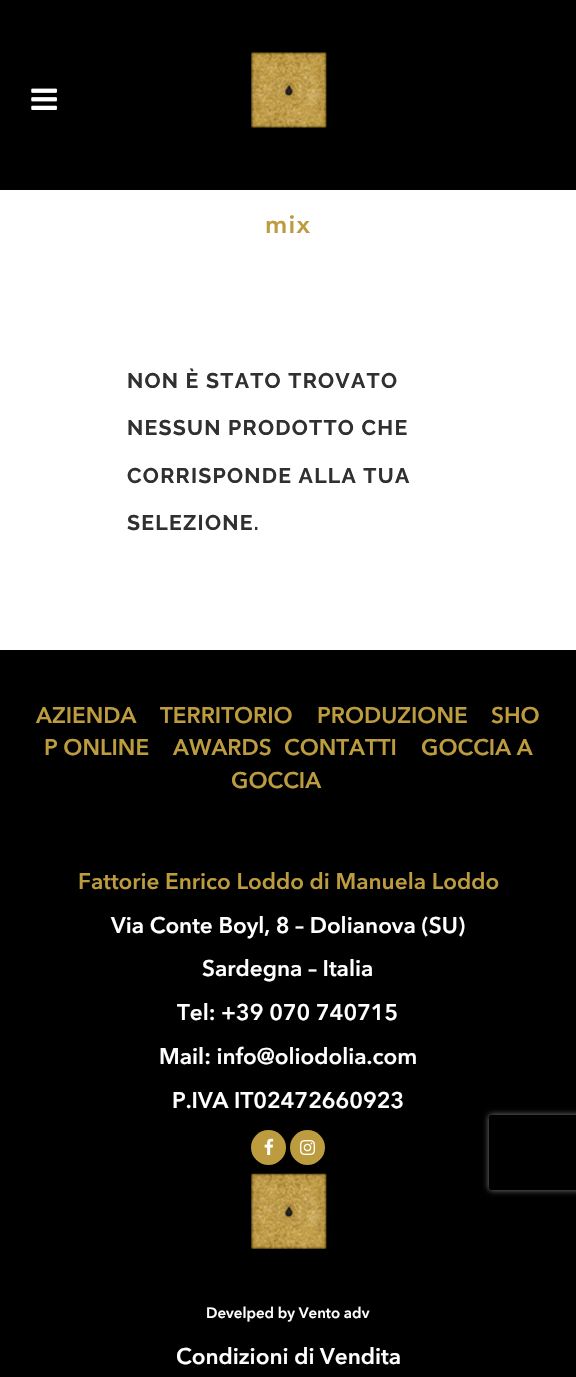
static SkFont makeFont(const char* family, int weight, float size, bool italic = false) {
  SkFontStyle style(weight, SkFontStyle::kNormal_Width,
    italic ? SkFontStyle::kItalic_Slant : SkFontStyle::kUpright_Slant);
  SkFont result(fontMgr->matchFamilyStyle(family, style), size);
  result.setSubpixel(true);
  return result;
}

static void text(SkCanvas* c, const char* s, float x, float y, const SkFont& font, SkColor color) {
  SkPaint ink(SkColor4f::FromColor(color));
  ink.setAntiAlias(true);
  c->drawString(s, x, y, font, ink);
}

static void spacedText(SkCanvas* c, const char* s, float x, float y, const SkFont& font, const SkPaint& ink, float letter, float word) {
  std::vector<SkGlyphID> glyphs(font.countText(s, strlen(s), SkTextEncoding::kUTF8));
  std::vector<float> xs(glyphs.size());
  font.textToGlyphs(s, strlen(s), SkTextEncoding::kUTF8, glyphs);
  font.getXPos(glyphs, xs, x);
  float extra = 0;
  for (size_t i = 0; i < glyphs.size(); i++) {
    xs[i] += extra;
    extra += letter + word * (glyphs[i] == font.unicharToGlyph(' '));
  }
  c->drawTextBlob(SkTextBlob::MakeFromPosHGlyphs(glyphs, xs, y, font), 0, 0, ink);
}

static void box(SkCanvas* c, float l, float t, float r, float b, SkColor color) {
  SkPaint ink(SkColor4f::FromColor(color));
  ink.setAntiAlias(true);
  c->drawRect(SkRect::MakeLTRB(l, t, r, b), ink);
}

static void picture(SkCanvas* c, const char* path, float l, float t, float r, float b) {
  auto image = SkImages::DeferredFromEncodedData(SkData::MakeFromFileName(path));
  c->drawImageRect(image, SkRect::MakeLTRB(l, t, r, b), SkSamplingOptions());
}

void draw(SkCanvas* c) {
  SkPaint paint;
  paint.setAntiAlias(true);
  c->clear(0xffffffff);
  box(c, 0, 0, 576, 190, 0xff000000);
  picture(c, "img_01.png", 31, 88, 57, 110);
  picture(c, "img_02.png", 251, 52, 327, 128);
  SkFont face1 = makeFont("Avenir Next", 600, 25);
  paint.setColor(0xffbd9c3f);
  spacedText(c, "mix", 265, 233, face1, paint, 1.25f, 0);
  SkFont face2 = makeFont("Raleway", 700, 21.25f);
  paint.setColor(0xff303030);
  spacedText(c, "NON È STATO TROVATO", 127, 388, face2, paint, 1.25f, 0);
  spacedText(c, "NESSUN PRODOTTO CHE", 127, 435, face2, paint, 1.25f, 0);
  spacedText(c, "CORRISPONDE ALLA TUA", 127, 483, face2, paint, 1.25f, 0);
  spacedText(c, "SELEZIONE.", 127, 530, face2, paint, 1.25f, 0);
  box(c, 0, 650, 576, 1377, 0xff000000);
  SkFont face3 = makeFont("Avenir Next", 600, 22.5f);
  text(c, "AZIENDA", 36, 723, face3, 0xffbd9c3f);
  text(c, "TERRITORIO", 160, 723, face3, 0xffbd9c3f);
  text(c, "PRODUZIONE", 317, 723, face3, 0xffbd9c3f);
  text(c, "SHO", 491, 723, face3, 0xffbd9c3f);
  text(c, "P ONLINE", 44, 755, face3, 0xffbd9c3f);
  text(c, "AWARDS", 173, 755, face3, 0xffbd9c3f);
  text(c, "CONTATTI", 284, 755, face3, 0xffbd9c3f);
  text(c, "GOCCIA A", 421, 755, face3, 0xffbd9c3f);
  text(c, "GOCCIA", 231, 788, face3, 0xffbd9c3f);
  text(c, "Fattorie Enrico Loddo di Manuela Loddo", 78, 889, face3, 0xffbd9c3f);
  text(c, "Via Conte Boyl, 8 – Dolianova (SU)", 111, 933, face3, 0xffffffff);
  text(c, "Sardegna – Italia", 202, 976, face3, 0xffffffff);
  text(c, "Tel: +39 070 740715", 177, 1020, face3, 0xffffffff);
  text(c, "Mail: info@oliodolia.com", 159, 1064, face3, 0xffffffff);
  text(c, "P.IVA IT02472660923", 172, 1108, face3, 0xffffffff);
  paint.setColor(0xffbd9c3f);
  c->drawCircle(268.5f, 1147.5f, 17.5f, paint);
  picture(c, "img_03.png", 264, 1138, 274, 1155);
  c->drawCircle(307.5f, 1147.5f, 17.5f, paint);
  picture(c, "img_04.png", 300, 1140, 315, 1155);
  picture(c, "img_05.png", 251, 1173, 327, 1249);
  SkFont face4 = makeFont("Avenir Next", 600, 15);
  text(c, "Develped by Vento adv", 206, 1318, face4, 0xffffffff);
  text(c, "Condizioni di Vendita", 176, 1364, face3, 0xffffffff);
  c->save();
  c->clipPath(SkPathBuilder(SkPathFillType::kEvenOdd).moveTo(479, 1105).lineTo(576, 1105).lineTo(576, 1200).lineTo(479, 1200).close().moveTo(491.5f, 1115).lineTo(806.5f, 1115).cubicTo(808, 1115, 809, 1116, 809, 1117.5f).lineTo(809, 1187.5f).cubicTo(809, 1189, 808, 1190, 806.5f, 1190).lineTo(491.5f, 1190).cubicTo(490, 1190, 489, 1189, 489, 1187.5f).lineTo(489, 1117.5f).cubicTo(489, 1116, 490, 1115, 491.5f, 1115).close().detach(), true);
  paint.setColor(0xff808080);
  paint.setMaskFilter(SkMaskFilter::MakeBlur(kNormal_SkBlurStyle, 3));
  c->drawRoundRect(SkRect::MakeLTRB(489, 1115, 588, 1190), 2.5f, 2.5f, paint);
  paint.setMaskFilter(nullptr);
  c->restore();
}
